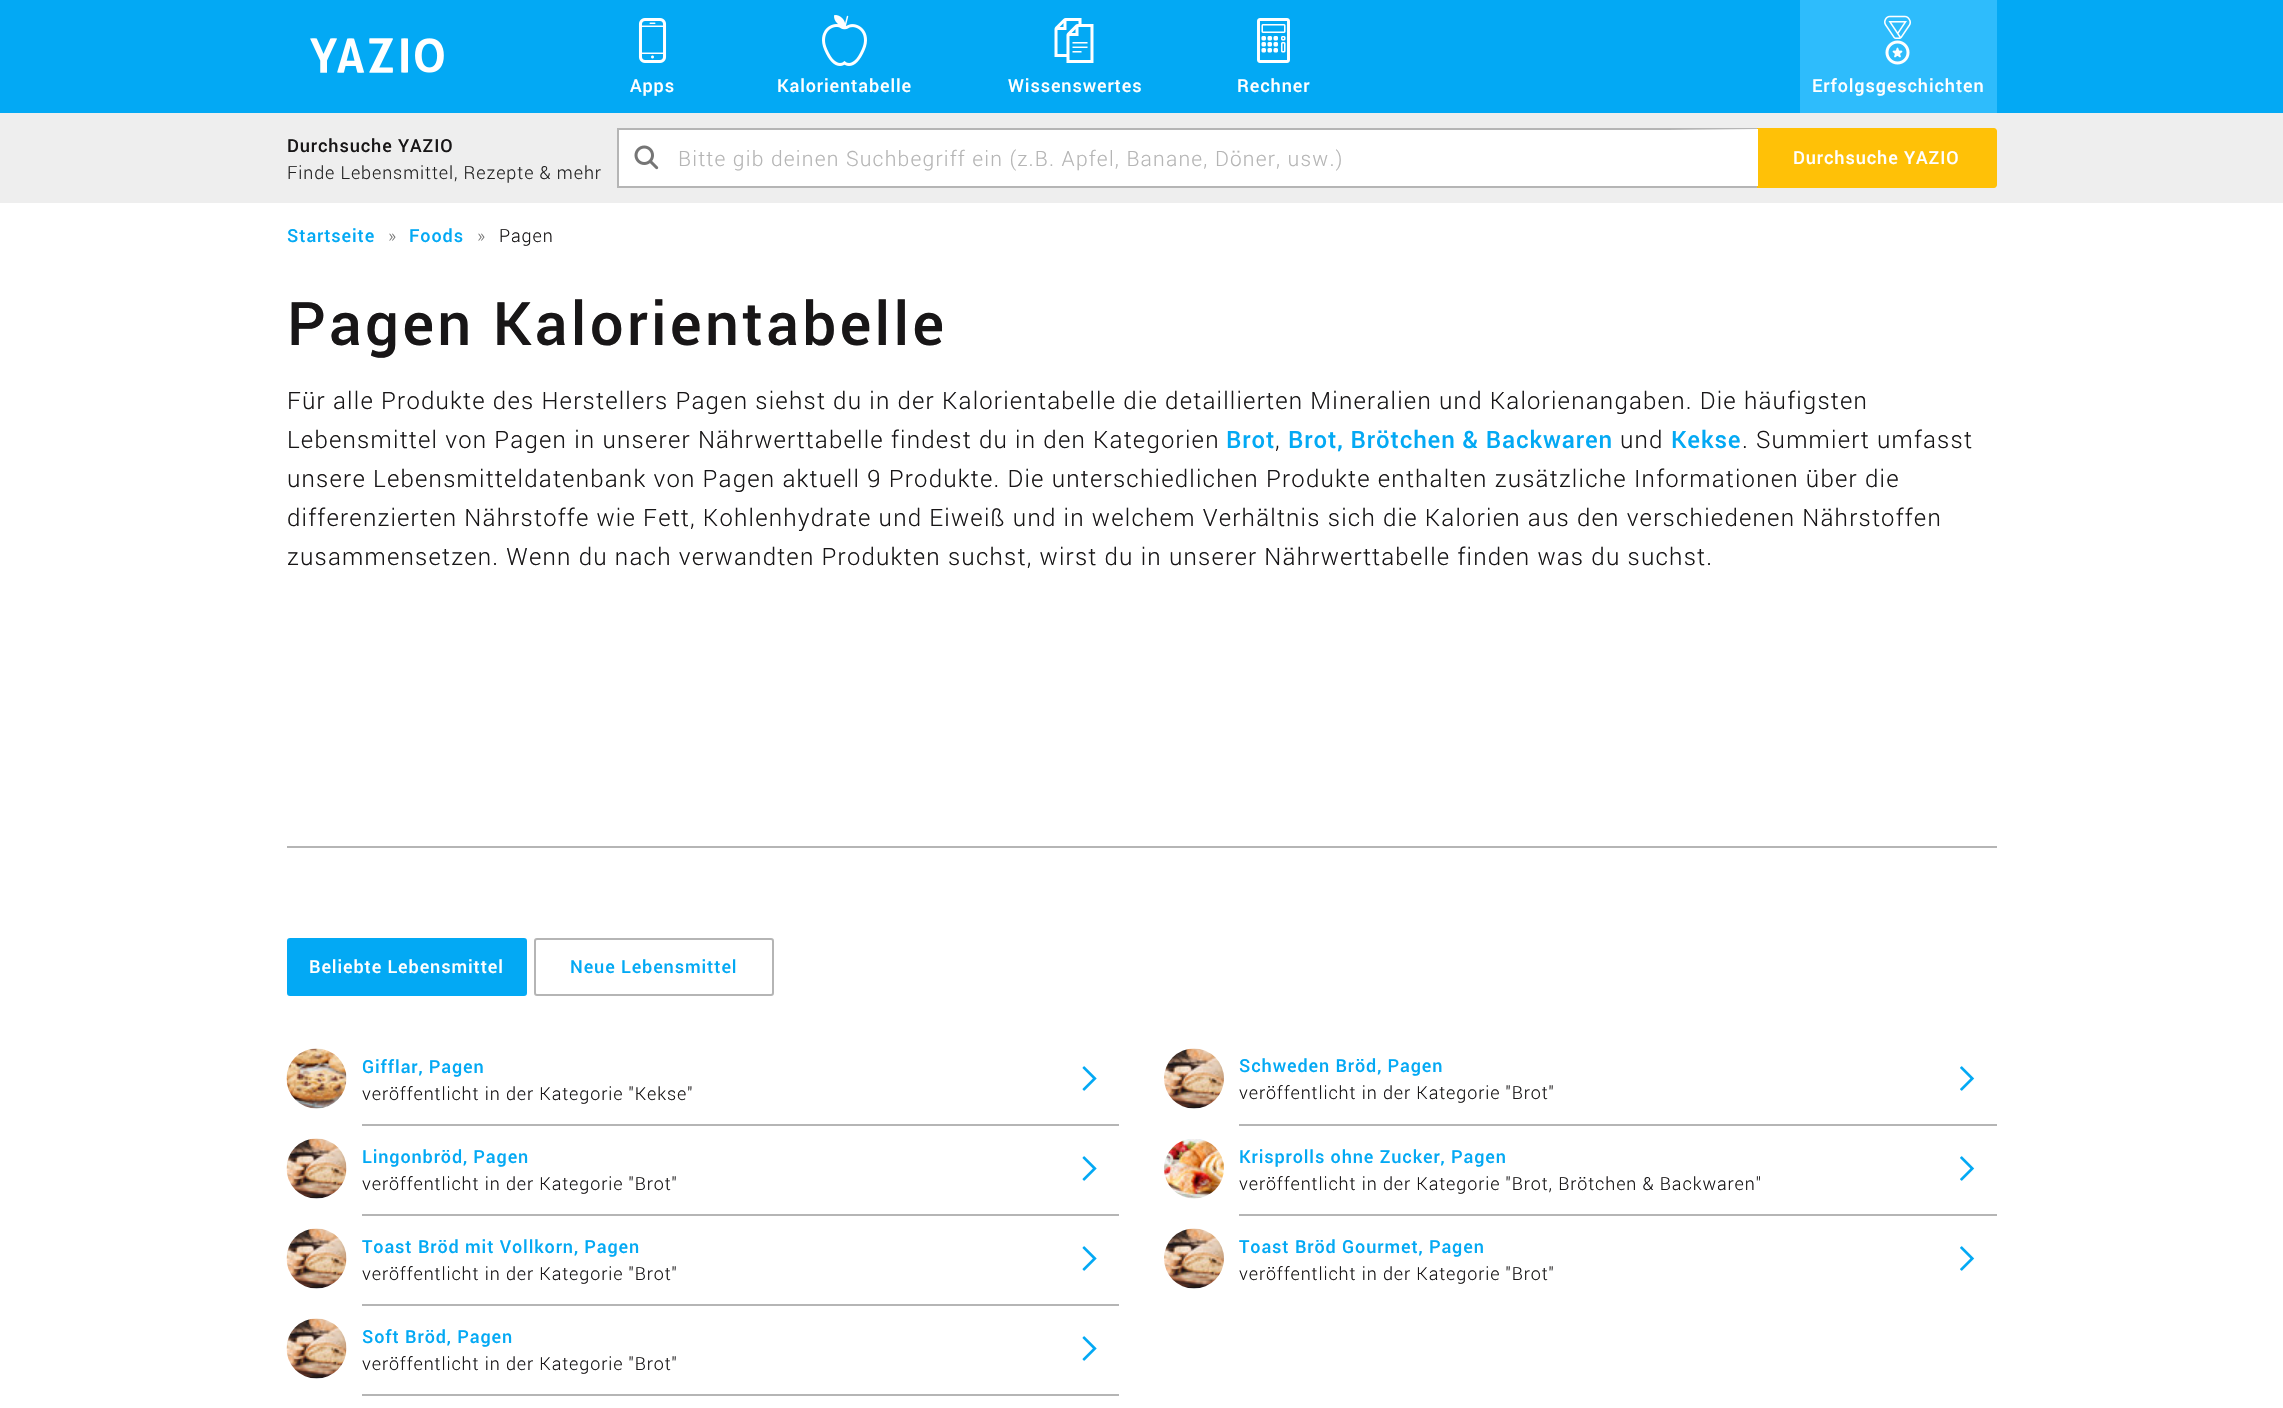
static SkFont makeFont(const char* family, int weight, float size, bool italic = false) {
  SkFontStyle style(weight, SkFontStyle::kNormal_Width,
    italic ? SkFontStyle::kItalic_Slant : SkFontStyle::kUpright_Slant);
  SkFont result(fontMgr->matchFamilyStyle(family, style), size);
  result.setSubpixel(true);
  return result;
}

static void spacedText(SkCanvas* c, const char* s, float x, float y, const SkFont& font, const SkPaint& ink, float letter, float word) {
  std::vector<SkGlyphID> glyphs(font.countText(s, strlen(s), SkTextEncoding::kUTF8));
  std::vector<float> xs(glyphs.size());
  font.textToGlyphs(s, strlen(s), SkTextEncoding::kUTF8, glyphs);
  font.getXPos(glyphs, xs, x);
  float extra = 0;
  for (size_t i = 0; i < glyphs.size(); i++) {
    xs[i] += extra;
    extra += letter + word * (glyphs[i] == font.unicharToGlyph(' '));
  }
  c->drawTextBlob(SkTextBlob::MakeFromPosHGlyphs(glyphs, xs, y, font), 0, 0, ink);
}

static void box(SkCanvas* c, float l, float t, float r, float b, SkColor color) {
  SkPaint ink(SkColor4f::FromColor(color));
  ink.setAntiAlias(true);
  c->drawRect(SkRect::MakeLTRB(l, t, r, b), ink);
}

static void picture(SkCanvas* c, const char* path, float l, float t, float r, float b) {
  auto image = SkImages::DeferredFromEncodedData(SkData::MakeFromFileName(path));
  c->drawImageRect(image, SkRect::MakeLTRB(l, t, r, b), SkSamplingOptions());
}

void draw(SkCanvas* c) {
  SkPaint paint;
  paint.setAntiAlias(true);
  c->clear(0xffffffff);
  box(c, 0, 0, 2283, 113, 0xff03a9f4);
  picture(c, "img_01.png", 310, 38, 444, 73);
  picture(c, "img_02.png", 638, 18, 667, 63);
  SkFont face1 = makeFont("Roboto", 500, 18);
  paint.setColor(0xffffffff);
  spacedText(c, "Apps", 630, 92, face1, paint, 0.9f, 0);
  picture(c, "img_03.png", 822, 15, 867, 66);
  spacedText(c, "Kalorientabelle", 777, 92, face1, paint, 0.9f, 0);
  picture(c, "img_04.png", 1054, 18, 1094, 63);
  spacedText(c, "Wissenswertes", 1008, 92, face1, paint, 0.9f, 0);
  picture(c, "img_05.png", 1257, 18, 1290, 63);
  spacedText(c, "Rechner", 1237, 92, face1, paint, 0.9f, 0);
  box(c, 1800, 0, 1997, 113, 0xff2ebcfc);
  picture(c, "img_06.png", 1884, 15, 1911, 65);
  spacedText(c, "Erfolgsgeschichten", 1812, 92, face1, paint, 0.9f, 0);
  box(c, 0, 113, 2283, 203, 0xffeeeeee);
  paint.setColor(0xff181617);
  spacedText(c, "Durchsuche YAZIO", 287, 152, face1, paint, 0.9f, 0);
  SkFont face2 = makeFont("Roboto", 300, 18);
  paint.setColor(0xff222222);
  spacedText(c, "Finde Lebensmittel, Rezepte & mehr", 287, 179, face2, paint, 0.9f, 0);
  box(c, 619, 130, 1757, 186, 0xffffffff);
  picture(c, "img_07.png", 634, 145, 659, 170);
  box(c, 617, 128, 1758, 130, 0xffb5b5b5);
  box(c, 617, 186, 1758, 188, 0xffb5b5b5);
  box(c, 617, 128, 619, 188, 0xffb5b5b5);
  SkFont face3 = makeFont("Roboto", 300, 21);
  paint.setColor(0xffb5b5b5);
  spacedText(c, "Bitte gib deinen Suchbegriff ein (z.B. Apfel, Banane, Döner, usw.)", 678, 166, face3, paint, 1.2f, 0);
  paint.setColor(0xffffc107);
  c->drawPath(SkPathBuilder().moveTo(1757, 128).lineTo(1994, 128).cubicTo(1995.5f, 128, 1997, 129.5f, 1997, 131).lineTo(1997, 185).cubicTo(1997, 186.5f, 1995.5f, 188, 1994, 188).lineTo(1757, 188).close().detach(), paint);
  {
    const SkColor colors[] = {0x00ffffff, 0xffffffff};
    const float stops[] = {0, 1};
    const SkPoint ends[] = {{1668, 158}, {1758, 158}};
    paint.setShader(SkGradientShader::MakeLinear(ends, colors, stops, 2, SkTileMode::kClamp));
    paint.setAlpha(255);
  }
  c->drawRect(SkRect::MakeLTRB(1671, 129, 1758, 186), paint);
  paint.setShader(nullptr);
  paint.setColor(0xffffffff);
  spacedText(c, "Durchsuche YAZIO", 1793, 164, face1, paint, 0.9f, 0);
  paint.setColor(0xff03a9f4);
  spacedText(c, "Startseite", 287, 242, face1, paint, 0.9f, 0);
  paint.setColor(0xff757575);
  spacedText(c, "»", 388, 242, face2, paint, 0.9f, 0);
  paint.setColor(0xff03a9f4);
  spacedText(c, "Foods", 409, 242, face1, paint, 0.9f, 0);
  paint.setColor(0xff757575);
  spacedText(c, "»", 477, 242, face2, paint, 0.9f, 0);
  paint.setColor(0xff181617);
  spacedText(c, "Pagen", 499, 242, face2, paint, 0.9f, 0);
  SkFont face4 = makeFont("Roboto", 500, 60);
  spacedText(c, "Pagen Kalorientabelle", 287, 345, face4, paint, 3.3f, 0);
  SkFont face5 = makeFont("Roboto", 300, 24);
  spacedText(c, "Für alle Produkte des Herstellers Pagen siehst du in der Kalorientabelle die detaillierten Mineralien und Kalorienangaben. Die häufigsten", 287, 409, face5, paint, 1.2f, 0);
  spacedText(c, "Lebensmittel von Pagen in unserer Nährwerttabelle findest du in den Kategorien", 287, 448, face5, paint, 1.2f, 0);
  SkFont face6 = makeFont("Roboto", 500, 24);
  paint.setColor(0xff03a9f4);
  spacedText(c, "Brot", 1226, 448, face6, paint, 0.9f, 0);
  paint.setColor(0xff181617);
  spacedText(c, ",", 1275, 448, face5, paint, 1.2f, 0);
  paint.setColor(0xff03a9f4);
  spacedText(c, "Brot, Brötchen & Backwaren", 1288, 448, face6, paint, 0.9f, 0);
  paint.setColor(0xff181617);
  spacedText(c, "und", 1620, 448, face5, paint, 1.2f, 0);
  paint.setColor(0xff03a9f4);
  spacedText(c, "Kekse", 1671, 448, face6, paint, 0.9f, 0);
  paint.setColor(0xff181617);
  spacedText(c, ". Summiert umfasst", 1742, 448, face5, paint, 1.2f, 0);
  spacedText(c, "unsere Lebensmitteldatenbank von Pagen aktuell 9 Produkte. Die unterschiedlichen Produkte enthalten zusätzliche Informationen über die", 287, 487, face5, paint, 1.2f, 0);
  spacedText(c, "differenzierten Nährstoffe wie Fett, Kohlenhydrate und Eiweiß und in welchem Verhältnis sich die Kalorien aus den verschiedenen Nährstoffen", 287, 526, face5, paint, 1.2f, 0);
  spacedText(c, "zusammensetzen. Wenn du nach verwandten Produkten suchst, wirst du in unserer Nährwerttabelle finden was du suchst.", 287, 565, face5, paint, 1.2f, 0);
  box(c, 287, 846, 1997, 848, 0xffb5b5b5);
  paint.setColor(0xff03a9f4);
  c->drawRoundRect(SkRect::MakeLTRB(288, 939, 526, 995), 2, 2, paint);
  paint.setStyle(SkPaint::kStroke_Style);
  paint.setStrokeWidth(2);
  c->drawRoundRect(SkRect::MakeLTRB(288, 939, 526, 995), 2, 2, paint);
  paint.setStyle(SkPaint::kFill_Style);
  paint.setColor(0xffffffff);
  spacedText(c, "Beliebte Lebensmittel", 309, 973, face1, paint, 0.9f, 0);
  paint.setStyle(SkPaint::kStroke_Style);
  paint.setColor(0xffb5b5b5);
  c->drawRoundRect(SkRect::MakeLTRB(535, 939, 773, 995), 2, 2, paint);
  paint.setStyle(SkPaint::kFill_Style);
  paint.setColor(0xff03a9f4);
  spacedText(c, "Neue Lebensmittel", 570, 973, face1, paint, 0.9f, 0);
  picture(c, "img_08.png", 286, 1048, 347, 1109);
  spacedText(c, "Gifflar, Pagen", 362, 1073, face1, paint, 0.9f, 0);
  paint.setColor(0xff181617);
  spacedText(c, "veröffentlicht in der Kategorie \"Kekse\"", 362, 1100, face2, paint, 0.9f, 0);
  picture(c, "img_09.png", 1082, 1066, 1097, 1091);
  picture(c, "img_10.png", 286, 1138, 347, 1199);
  box(c, 362, 1124, 1119, 1126, 0xffb5b5b5);
  paint.setColor(0xff03a9f4);
  spacedText(c, "Lingonbröd, Pagen", 362, 1163, face1, paint, 0.9f, 0);
  paint.setColor(0xff181617);
  spacedText(c, "veröffentlicht in der Kategorie \"Brot\"", 362, 1190, face2, paint, 0.9f, 0);
  picture(c, "img_09.png", 1082, 1156, 1097, 1181);
  picture(c, "img_11.png", 286, 1228, 347, 1289);
  box(c, 362, 1214, 1119, 1216, 0xffb5b5b5);
  paint.setColor(0xff03a9f4);
  spacedText(c, "Toast Bröd mit Vollkorn, Pagen", 362, 1253, face1, paint, 0.9f, 0);
  paint.setColor(0xff181617);
  spacedText(c, "veröffentlicht in der Kategorie \"Brot\"", 362, 1280, face2, paint, 0.9f, 0);
  picture(c, "img_09.png", 1082, 1246, 1097, 1271);
  picture(c, "img_10.png", 286, 1318, 347, 1379);
  box(c, 362, 1304, 1119, 1306, 0xffb5b5b5);
  paint.setColor(0xff03a9f4);
  spacedText(c, "Soft Bröd, Pagen", 362, 1343, face1, paint, 0.9f, 0);
  paint.setColor(0xff181617);
  spacedText(c, "veröffentlicht in der Kategorie \"Brot\"", 362, 1370, face2, paint, 0.9f, 0);
  picture(c, "img_09.png", 1082, 1336, 1097, 1361);
  box(c, 362, 1394, 1119, 1396, 0xffb5b5b5);
  picture(c, "img_12.png", 1164, 1048, 1224, 1109);
  paint.setColor(0xff03a9f4);
  spacedText(c, "Schweden Bröd, Pagen", 1239, 1072, face1, paint, 0.9f, 0);
  paint.setColor(0xff181617);
  spacedText(c, "veröffentlicht in der Kategorie \"Brot\"", 1239, 1099, face2, paint, 0.9f, 0);
  picture(c, "img_13.png", 1960, 1066, 1975, 1091);
  picture(c, "img_14.png", 1164, 1139, 1224, 1199);
  box(c, 1239, 1124, 1997, 1126, 0xffb5b5b5);
  paint.setColor(0xff03a9f4);
  spacedText(c, "Krisprolls ohne Zucker, Pagen", 1239, 1163, face1, paint, 0.9f, 0);
  paint.setColor(0xff181617);
  spacedText(c, "veröffentlicht in der Kategorie \"Brot, Brötchen & Backwaren\"", 1239, 1190, face2, paint, 0.9f, 0);
  picture(c, "img_13.png", 1960, 1156, 1975, 1181);
  picture(c, "img_15.png", 1164, 1228, 1224, 1289);
  box(c, 1239, 1214, 1997, 1216, 0xffb5b5b5);
  paint.setColor(0xff03a9f4);
  spacedText(c, "Toast Bröd Gourmet, Pagen", 1239, 1253, face1, paint, 0.9f, 0);
  paint.setColor(0xff181617);
  spacedText(c, "veröffentlicht in der Kategorie \"Brot\"", 1239, 1280, face2, paint, 0.9f, 0);
  picture(c, "img_13.png", 1960, 1246, 1975, 1271);
}
